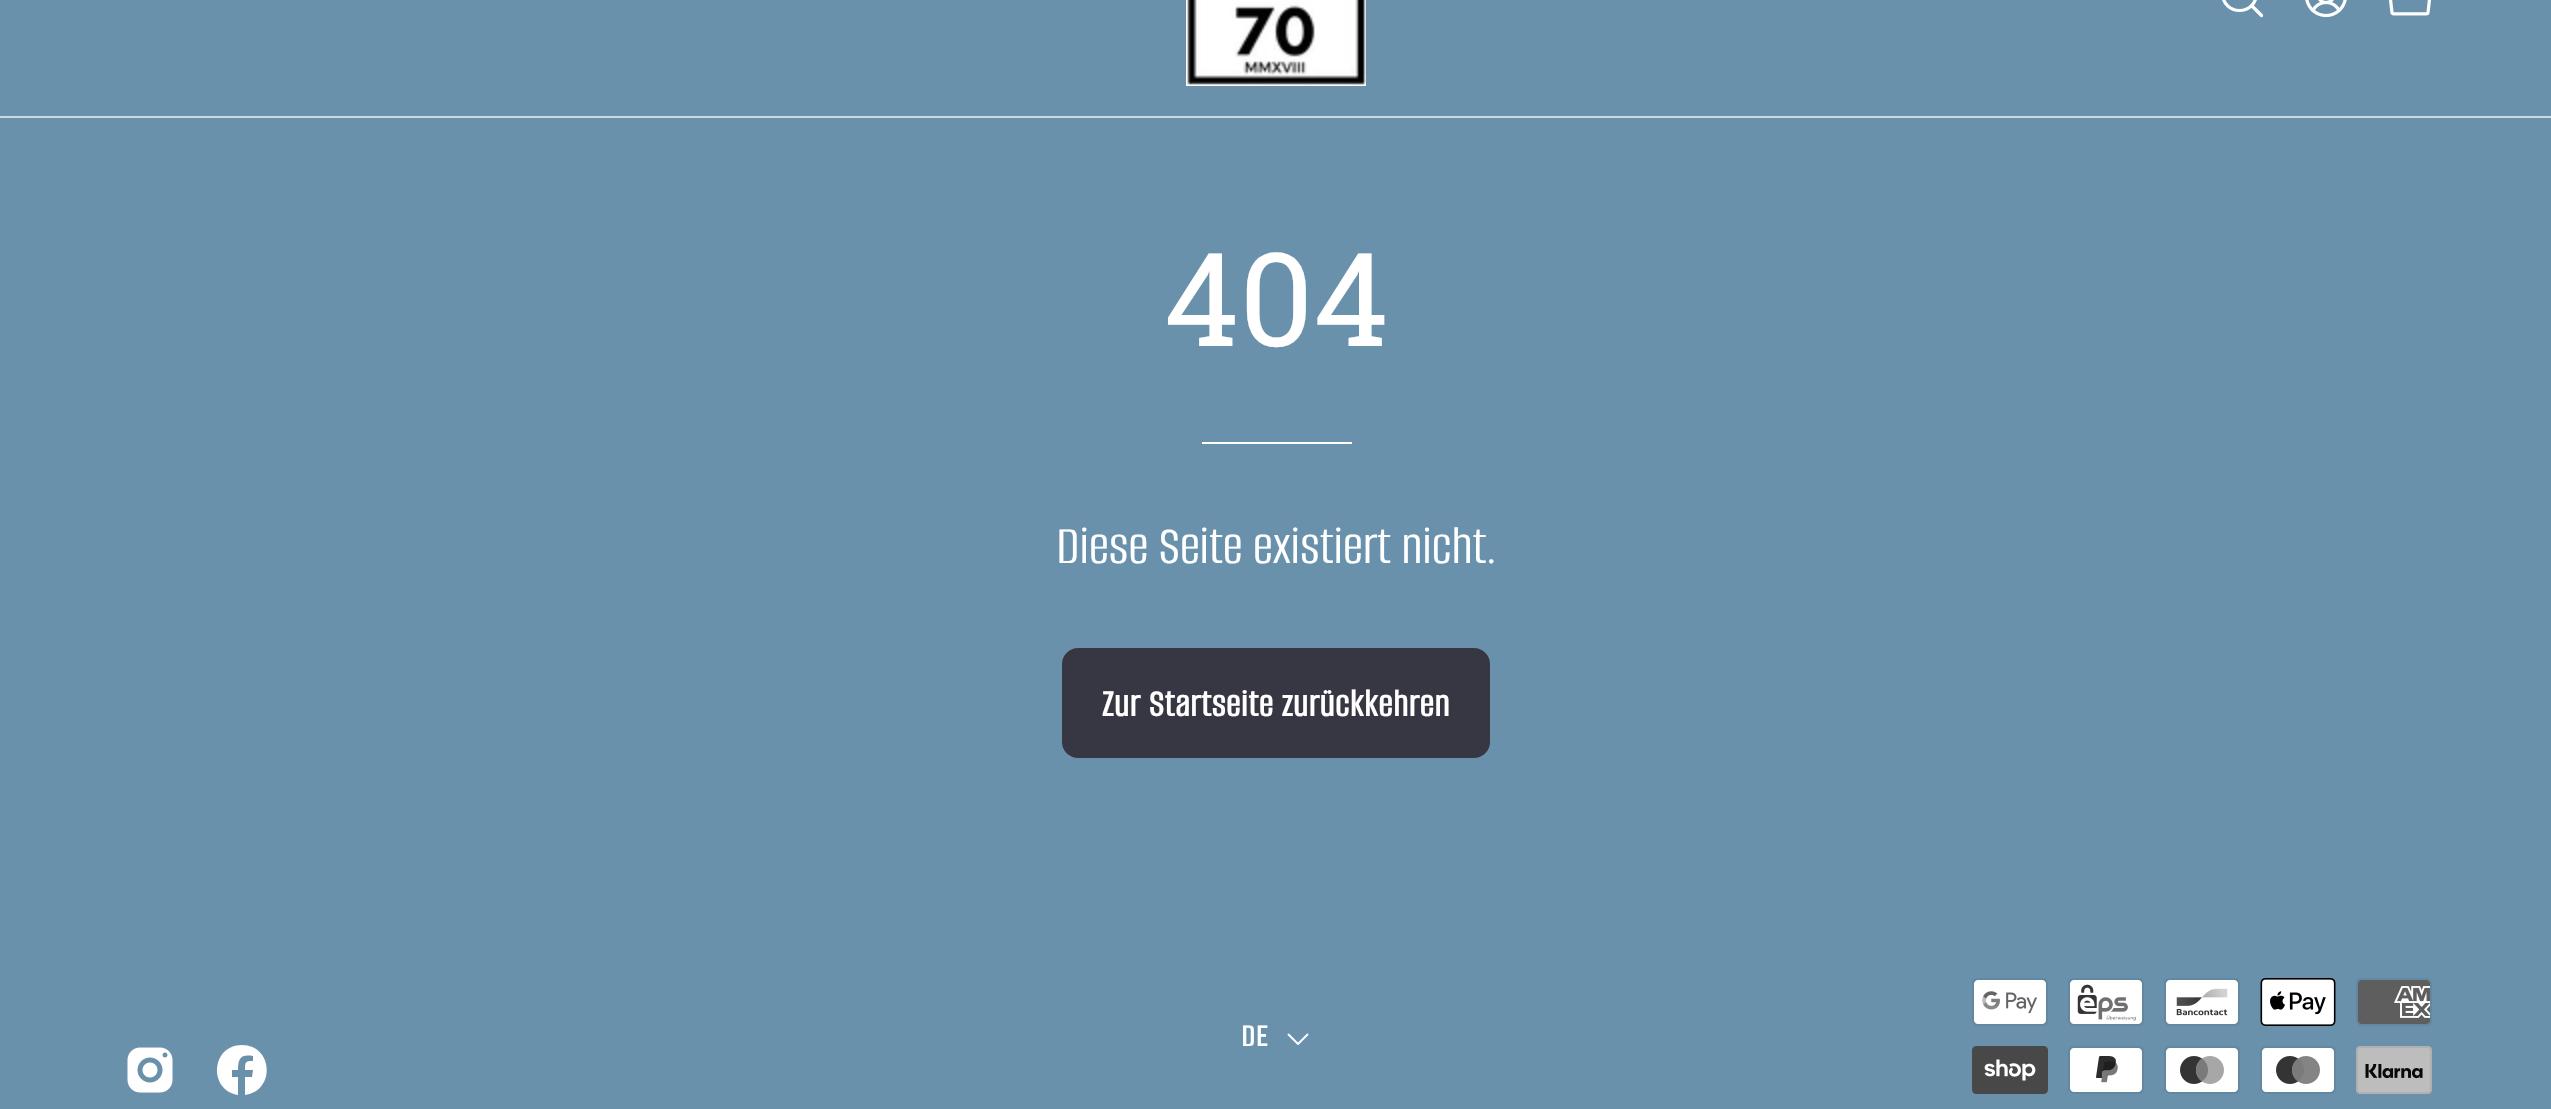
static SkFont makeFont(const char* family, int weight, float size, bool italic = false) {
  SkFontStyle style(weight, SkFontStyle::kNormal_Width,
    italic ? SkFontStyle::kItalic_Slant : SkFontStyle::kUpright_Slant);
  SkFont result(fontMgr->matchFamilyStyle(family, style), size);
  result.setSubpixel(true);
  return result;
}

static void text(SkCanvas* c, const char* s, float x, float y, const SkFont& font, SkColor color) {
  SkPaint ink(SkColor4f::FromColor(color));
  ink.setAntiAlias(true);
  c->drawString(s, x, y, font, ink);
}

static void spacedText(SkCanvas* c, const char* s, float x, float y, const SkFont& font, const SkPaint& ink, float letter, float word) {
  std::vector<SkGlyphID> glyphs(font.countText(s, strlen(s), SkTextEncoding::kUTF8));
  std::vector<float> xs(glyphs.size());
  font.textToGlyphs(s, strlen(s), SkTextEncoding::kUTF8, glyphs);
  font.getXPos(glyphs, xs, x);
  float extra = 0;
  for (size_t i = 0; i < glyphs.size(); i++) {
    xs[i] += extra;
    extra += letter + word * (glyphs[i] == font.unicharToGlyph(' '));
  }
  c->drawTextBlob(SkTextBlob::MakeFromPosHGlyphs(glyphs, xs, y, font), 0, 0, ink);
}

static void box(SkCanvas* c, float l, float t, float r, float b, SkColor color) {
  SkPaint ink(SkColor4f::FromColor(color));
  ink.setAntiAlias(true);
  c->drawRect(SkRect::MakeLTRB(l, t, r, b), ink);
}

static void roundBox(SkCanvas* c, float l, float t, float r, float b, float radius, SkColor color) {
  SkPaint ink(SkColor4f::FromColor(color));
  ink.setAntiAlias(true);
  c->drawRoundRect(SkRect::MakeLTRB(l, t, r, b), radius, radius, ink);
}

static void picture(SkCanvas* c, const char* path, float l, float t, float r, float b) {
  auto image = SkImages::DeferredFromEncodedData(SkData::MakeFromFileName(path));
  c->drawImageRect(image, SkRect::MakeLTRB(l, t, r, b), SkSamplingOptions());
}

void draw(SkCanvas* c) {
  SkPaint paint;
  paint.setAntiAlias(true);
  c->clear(0xff6991ac);
  picture(c, "img_01.png", 1186, 0, 1366, 86);
  paint.setStyle(SkPaint::kStroke_Style);
  paint.setStrokeWidth(3.2f);
  paint.setStrokeCap(SkPaint::kRound_Cap);
  paint.setStrokeJoin(SkPaint::kRound_Join);
  paint.setColor(0xffffffff);
  c->drawPath(SkPathBuilder().moveTo(2239.5f, 10.5f).cubicTo(2249, 10.5f, 2256.5f, 3, 2256.5f, -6.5f).cubicTo(2256.5f, -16, 2249, -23.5f, 2239.5f, -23.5f).cubicTo(2230, -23.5f, 2222.5f, -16, 2222.5f, -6.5f).cubicTo(2222.5f, 3, 2230, 10.5f, 2239.5f, 10.5f).close().moveTo(2251.5f, 5.5f).lineTo(2261.5f, 15.5f).detach(), paint);
  picture(c, "img_02.png", 2305, 0, 2347, 18);
  picture(c, "img_03.png", 2389, 0, 2431, 16);
  box(c, 0, 116, 2551, 118, 0xffcbd9e2);
  SkFont face1 = makeFont("Roboto Slab", 400, 130);
  text(c, "404", 1164, 346, face1, 0xffffffff);
  box(c, 1202, 442, 1352, 444, 0xffffffff);
  SkFont face2 = makeFont("Alumni Sans", 400, 56.75f);
  text(c, "Diese Seite existiert nicht.", 1056, 563, face2, 0xffffffff);
  roundBox(c, 1062, 648, 1490, 758, 16, 0xff373643);
  SkFont face3 = makeFont("Alumni Sans", 700, 40);
  paint.setStyle(SkPaint::kFill_Style);
  spacedText(c, "Zur Startseite zurückkehren", 1102, 716, face3, paint, 0.8f, 0);
  SkFont face4 = makeFont("Alumni Sans", 700, 33);
  spacedText(c, "DE", 1241, 1046, face4, paint, 1, 0);
  paint.setStyle(SkPaint::kStroke_Style);
  paint.setStrokeWidth(1.9f);
  c->drawPath(SkPathBuilder().moveTo(1307.5f, 1034.5f).lineTo(1298, 1044).lineTo(1288.5f, 1034.5f).detach(), paint);
  picture(c, "img_04.png", 1972, 978, 2048, 1026);
  picture(c, "img_05.png", 2068, 978, 2144, 1026);
  picture(c, "img_06.png", 2164, 978, 2240, 1026);
  picture(c, "img_07.png", 2260, 978, 2336, 1026);
  picture(c, "img_08.png", 2356, 978, 2432, 1026);
  picture(c, "img_09.png", 1972, 1046, 2048, 1094);
  picture(c, "img_10.png", 2068, 1046, 2144, 1094);
  picture(c, "img_11.png", 2164, 1046, 2240, 1094);
  picture(c, "img_12.png", 2260, 1046, 2336, 1094);
  picture(c, "img_13.png", 2356, 1046, 2432, 1094);
  picture(c, "img_14.png", 127, 1047, 173, 1093);
  paint.setStyle(SkPaint::kFill_Style);
  c->drawPath(SkPathBuilder().moveTo(242, 1045).cubicTo(211, 1045, 208, 1090, 238, 1095).lineTo(238, 1077).lineTo(232, 1077).lineTo(232, 1070).lineTo(238, 1070).cubicTo(238, 1058, 241, 1054, 253, 1056).lineTo(253, 1061).cubicTo(245, 1061, 245, 1062, 245, 1070).lineTo(253, 1070).lineTo(252, 1077).lineTo(245, 1077).lineTo(245, 1095).cubicTo(276, 1091, 273, 1045, 242, 1045).close().detach(), paint);
}
